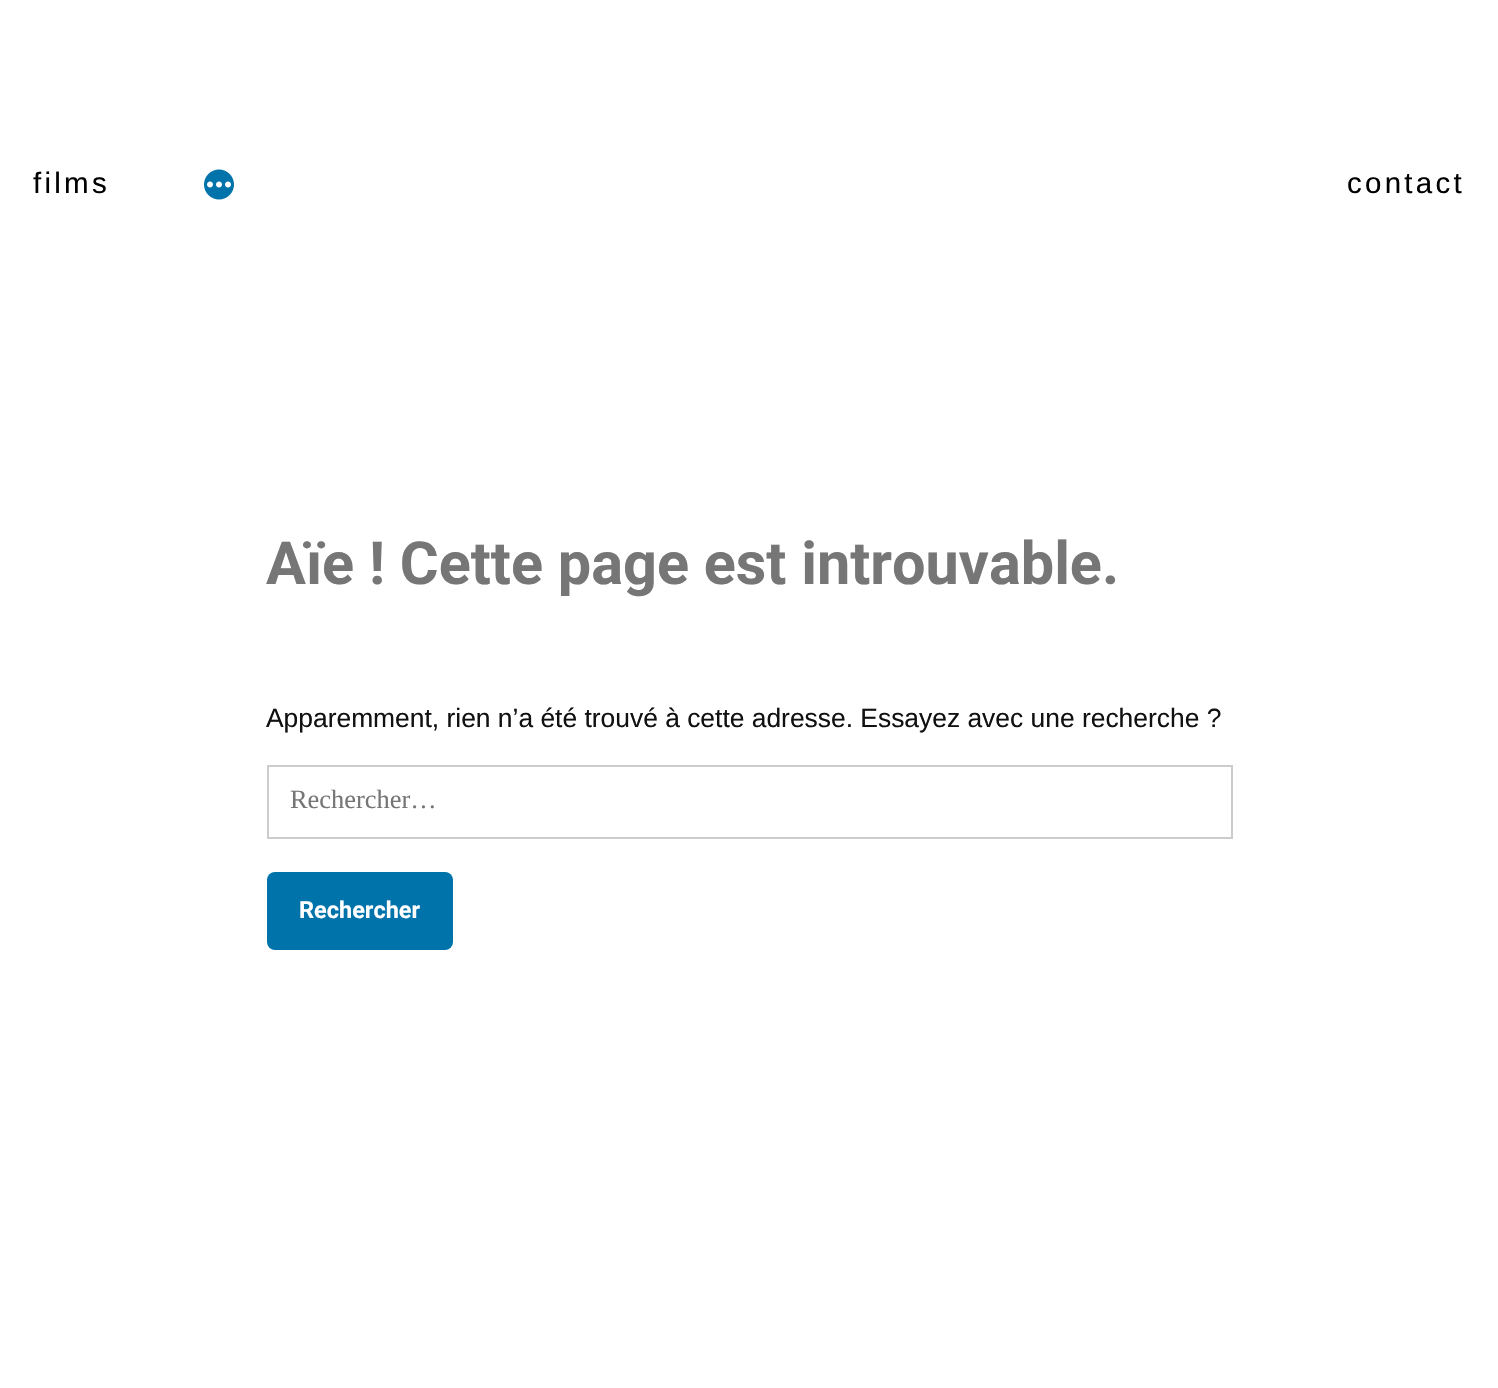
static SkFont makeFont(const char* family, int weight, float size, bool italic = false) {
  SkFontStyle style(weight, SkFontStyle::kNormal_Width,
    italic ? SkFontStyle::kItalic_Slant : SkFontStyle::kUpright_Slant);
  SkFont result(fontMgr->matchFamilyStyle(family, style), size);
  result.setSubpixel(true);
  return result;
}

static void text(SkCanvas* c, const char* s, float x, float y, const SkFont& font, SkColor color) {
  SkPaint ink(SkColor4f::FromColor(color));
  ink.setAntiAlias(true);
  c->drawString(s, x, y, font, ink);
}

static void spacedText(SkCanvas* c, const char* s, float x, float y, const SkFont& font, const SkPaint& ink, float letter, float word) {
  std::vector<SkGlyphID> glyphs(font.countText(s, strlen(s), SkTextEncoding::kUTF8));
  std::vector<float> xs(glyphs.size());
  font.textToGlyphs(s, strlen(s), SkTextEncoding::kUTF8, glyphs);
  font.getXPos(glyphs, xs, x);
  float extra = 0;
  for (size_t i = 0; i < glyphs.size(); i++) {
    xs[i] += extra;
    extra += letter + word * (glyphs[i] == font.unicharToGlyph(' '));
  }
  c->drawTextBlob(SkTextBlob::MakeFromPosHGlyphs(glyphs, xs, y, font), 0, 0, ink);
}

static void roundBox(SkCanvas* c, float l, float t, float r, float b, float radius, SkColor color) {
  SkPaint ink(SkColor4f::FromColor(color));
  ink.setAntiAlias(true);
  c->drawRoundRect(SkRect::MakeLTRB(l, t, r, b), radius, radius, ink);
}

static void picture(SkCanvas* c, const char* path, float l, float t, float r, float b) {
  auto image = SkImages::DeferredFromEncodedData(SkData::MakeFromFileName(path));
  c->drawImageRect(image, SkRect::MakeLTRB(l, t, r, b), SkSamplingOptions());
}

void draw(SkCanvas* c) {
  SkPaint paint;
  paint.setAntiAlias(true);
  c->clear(0xffffffff);
  SkFont face1 = makeFont("Liberation Sans", 400, 29.5f);
  paint.setColor(0xff000000);
  spacedText(c, "films", 33, 193, face1, paint, 3.25f, 0);
  picture(c, "img_01.png", 204, 169, 234, 200);
  spacedText(c, "contact", 1347, 193, face1, paint, 3.25f, 0);
  SkFont face2 = makeFont("Roboto", 700, 59.4f);
  text(c, "Aïe ! Cette page est introuvable.", 266, 584, face2, 0xff767676);
  SkFont face3 = makeFont("Liberation Sans", 400, 26.4f);
  text(c, "Apparemment, rien n’a été trouvé à cette adresse. Essayez avec une recherche ?", 266, 727, face3, 0xff111111);
  paint.setStyle(SkPaint::kStroke_Style);
  paint.setStrokeWidth(2);
  paint.setColor(0xffcccccc);
  c->drawRect(SkRect::MakeLTRB(268, 766, 1232, 838), paint);
  SkFont face4 = makeFont("Liberation Serif", 400, 26.4f);
  text(c, "Rechercher…", 290, 808, face4, 0xff767676);
  roundBox(c, 267, 872, 453, 950, 8, 0xff0073aa);
  SkFont face5 = makeFont("Roboto", 700, 23.5f);
  text(c, "Rechercher", 299, 918, face5, 0xffffffff);
}
